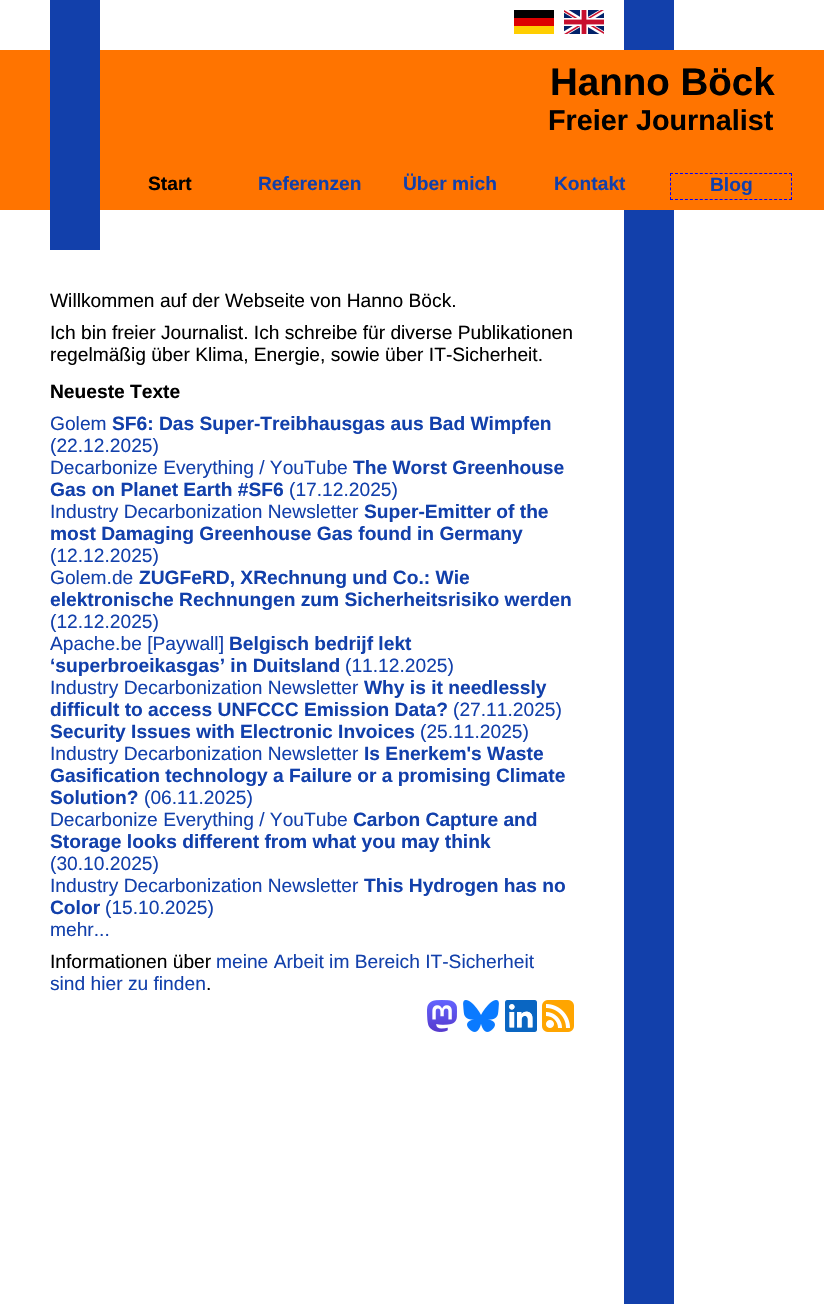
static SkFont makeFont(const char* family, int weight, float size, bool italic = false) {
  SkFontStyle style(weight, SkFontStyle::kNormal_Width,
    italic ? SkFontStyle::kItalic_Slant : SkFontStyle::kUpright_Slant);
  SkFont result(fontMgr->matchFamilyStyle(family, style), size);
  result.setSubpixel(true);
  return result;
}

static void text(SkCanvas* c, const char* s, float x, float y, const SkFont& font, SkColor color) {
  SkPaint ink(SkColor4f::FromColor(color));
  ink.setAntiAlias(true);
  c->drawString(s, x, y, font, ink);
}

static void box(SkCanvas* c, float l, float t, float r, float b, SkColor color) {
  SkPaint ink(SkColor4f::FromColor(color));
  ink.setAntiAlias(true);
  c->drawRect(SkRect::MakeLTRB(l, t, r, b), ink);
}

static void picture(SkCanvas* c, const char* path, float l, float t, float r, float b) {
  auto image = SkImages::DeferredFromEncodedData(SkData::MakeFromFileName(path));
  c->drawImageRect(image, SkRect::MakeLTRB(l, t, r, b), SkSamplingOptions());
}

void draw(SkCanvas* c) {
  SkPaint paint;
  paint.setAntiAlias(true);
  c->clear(0xffffffff);
  box(c, 624, 0, 674, 1304, 0xff1240ab);
  box(c, 0, 50, 824, 210, 0xffff7400);
  box(c, 50, 0, 100, 250, 0xff1240ab);
  box(c, 514, 10, 554, 18, 0xff000000);
  picture(c, "img_01.png", 564, 10, 604, 34);
  box(c, 514, 18, 554, 26, 0xffdd0000);
  box(c, 514, 26, 554, 34, 0xffffce00);
  SkFont face1 = makeFont("Liberation Sans", 700, 38.5f);
  text(c, "Hanno Böck", 550, 95, face1, 0xff000000);
  SkFont face2 = makeFont("Liberation Sans", 700, 28.75f);
  text(c, "Freier Journalist", 548, 130, face2, 0xff000000);
  SkFont face3 = makeFont("Liberation Sans", 700, 19.2f);
  text(c, "Start", 148, 190, face3, 0xff000000);
  text(c, "Referenzen", 258, 190, face3, 0xff1240ab);
  text(c, "Über mich", 403, 190, face3, 0xff1240ab);
  text(c, "Kontakt", 554, 190, face3, 0xff1240ab);
  paint.setStyle(SkPaint::kStroke_Style);
  paint.setStrokeWidth(1);
  paint.setColor(0xff0000ff);
  paint.setPathEffect(SkDashPathEffect::Make({{3, 1.96f}}, 0));
  c->drawPath(SkPathBuilder().moveTo(670, 173.5f).lineTo(792, 173.5f).detach(), paint);
  paint.setPathEffect(nullptr);
  paint.setPathEffect(SkDashPathEffect::Make({{3, 1.8f}}, 0));
  c->drawPath(SkPathBuilder().moveTo(791.5f, 173).lineTo(791.5f, 200).detach(), paint);
  paint.setPathEffect(nullptr);
  paint.setPathEffect(SkDashPathEffect::Make({{3, 1.96f}}, 0));
  c->drawPath(SkPathBuilder().moveTo(670, 199.5f).lineTo(792, 199.5f).detach(), paint);
  paint.setPathEffect(nullptr);
  paint.setPathEffect(SkDashPathEffect::Make({{3, 1.8f}}, 0));
  c->drawPath(SkPathBuilder().moveTo(670.5f, 173).lineTo(670.5f, 200).detach(), paint);
  paint.setPathEffect(nullptr);
  text(c, "Blog", 710, 191, face3, 0xff1240ab);
  SkFont face4 = makeFont("Liberation Sans", 400, 19.2f);
  text(c, "Willkommen auf der Webseite von Hanno Böck.", 50, 307, face4, 0xff000000);
  text(c, "Ich bin freier Journalist. Ich schreibe für diverse Publikationen", 50, 339, face4, 0xff000000);
  text(c, "regelmäßig über Klima, Energie, sowie über IT-Sicherheit.", 50, 361, face4, 0xff000000);
  text(c, "Neueste Texte", 50, 398, face3, 0xff000000);
  text(c, "Golem", 50, 430, face4, 0xff1240ab);
  text(c, "SF6: Das Super-Treibhausgas aus Bad Wimpfen", 112, 430, face3, 0xff1240ab);
  text(c, "(22.12.2025)", 50, 452, face4, 0xff1240ab);
  text(c, "Decarbonize Everything / YouTube", 50, 474, face4, 0xff1240ab);
  text(c, "The Worst Greenhouse", 353, 474, face3, 0xff1240ab);
  text(c, "Gas on Planet Earth #SF6", 50, 496, face3, 0xff1240ab);
  text(c, "(17.12.2025)", 289, 496, face4, 0xff1240ab);
  text(c, "Industry Decarbonization Newsletter", 50, 518, face4, 0xff1240ab);
  text(c, "Super-Emitter of the", 364, 518, face3, 0xff1240ab);
  text(c, "most Damaging Greenhouse Gas found in Germany", 50, 540, face3, 0xff1240ab);
  text(c, "(12.12.2025)", 50, 562, face4, 0xff1240ab);
  text(c, "Golem.de", 50, 584, face4, 0xff1240ab);
  text(c, "ZUGFeRD, XRechnung und Co.: Wie", 139, 584, face3, 0xff1240ab);
  text(c, "elektronische Rechnungen zum Sicherheitsrisiko werden", 50, 606, face3, 0xff1240ab);
  text(c, "(12.12.2025)", 50, 628, face4, 0xff1240ab);
  text(c, "Apache.be [Paywall]", 50, 650, face4, 0xff1240ab);
  text(c, "Belgisch bedrijf lekt", 229, 650, face3, 0xff1240ab);
  text(c, "‘superbroeikasgas’ in Duitsland", 50, 672, face3, 0xff1240ab);
  text(c, "(11.12.2025)", 345, 672, face4, 0xff1240ab);
  text(c, "Industry Decarbonization Newsletter", 50, 694, face4, 0xff1240ab);
  text(c, "Why is it needlessly", 364, 694, face3, 0xff1240ab);
  text(c, "difficult to access UNFCCC Emission Data?", 50, 716, face3, 0xff1240ab);
  text(c, "(27.11.2025)", 453, 716, face4, 0xff1240ab);
  text(c, "Security Issues with Electronic Invoices", 50, 738, face3, 0xff1240ab);
  text(c, "(25.11.2025)", 420, 738, face4, 0xff1240ab);
  text(c, "Industry Decarbonization Newsletter", 50, 760, face4, 0xff1240ab);
  text(c, "Is Enerkem's Waste", 364, 760, face3, 0xff1240ab);
  text(c, "Gasification technology a Failure or a promising Climate", 50, 782, face3, 0xff1240ab);
  text(c, "Solution?", 50, 804, face3, 0xff1240ab);
  text(c, "(06.11.2025)", 144, 804, face4, 0xff1240ab);
  text(c, "Decarbonize Everything / YouTube", 50, 826, face4, 0xff1240ab);
  text(c, "Carbon Capture and", 353, 826, face3, 0xff1240ab);
  text(c, "Storage looks different from what you may think", 50, 848, face3, 0xff1240ab);
  text(c, "(30.10.2025)", 50, 870, face4, 0xff1240ab);
  text(c, "Industry Decarbonization Newsletter", 50, 892, face4, 0xff1240ab);
  text(c, "This Hydrogen has no", 364, 892, face3, 0xff1240ab);
  text(c, "Color", 50, 914, face3, 0xff1240ab);
  text(c, "(15.10.2025)", 105, 914, face4, 0xff1240ab);
  text(c, "mehr...", 50, 936, face4, 0xff1240ab);
  text(c, "Informationen über", 50, 968, face4, 0xff000000);
  text(c, "meine Arbeit im Bereich IT-Sicherheit", 216, 968, face4, 0xff1240ab);
  text(c, "sind hier zu finden", 50, 990, face4, 0xff1240ab);
  text(c, ".", 206, 990, face4, 0xff000000);
  picture(c, "img_02.png", 427, 1000, 457, 1032);
  picture(c, "img_03.png", 463, 1000, 499, 1032);
  picture(c, "img_04.png", 505, 1000, 537, 1032);
  picture(c, "img_05.png", 542, 1000, 574, 1032);
}
